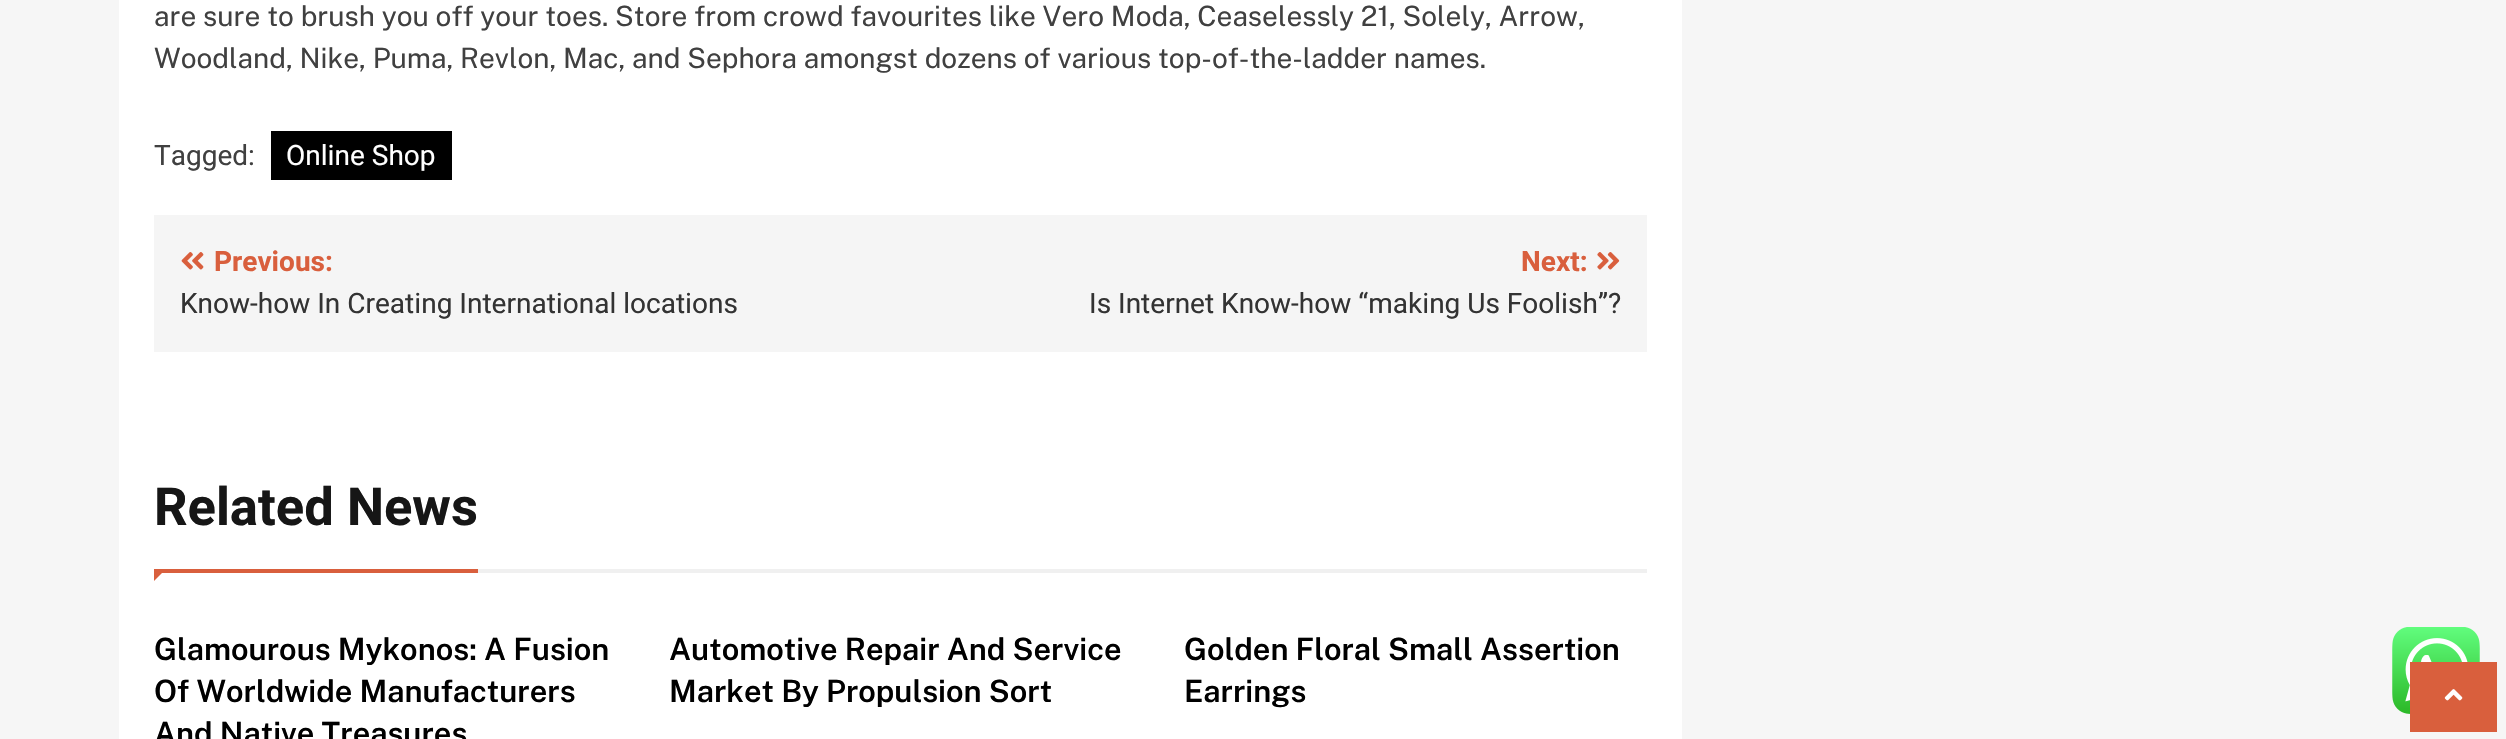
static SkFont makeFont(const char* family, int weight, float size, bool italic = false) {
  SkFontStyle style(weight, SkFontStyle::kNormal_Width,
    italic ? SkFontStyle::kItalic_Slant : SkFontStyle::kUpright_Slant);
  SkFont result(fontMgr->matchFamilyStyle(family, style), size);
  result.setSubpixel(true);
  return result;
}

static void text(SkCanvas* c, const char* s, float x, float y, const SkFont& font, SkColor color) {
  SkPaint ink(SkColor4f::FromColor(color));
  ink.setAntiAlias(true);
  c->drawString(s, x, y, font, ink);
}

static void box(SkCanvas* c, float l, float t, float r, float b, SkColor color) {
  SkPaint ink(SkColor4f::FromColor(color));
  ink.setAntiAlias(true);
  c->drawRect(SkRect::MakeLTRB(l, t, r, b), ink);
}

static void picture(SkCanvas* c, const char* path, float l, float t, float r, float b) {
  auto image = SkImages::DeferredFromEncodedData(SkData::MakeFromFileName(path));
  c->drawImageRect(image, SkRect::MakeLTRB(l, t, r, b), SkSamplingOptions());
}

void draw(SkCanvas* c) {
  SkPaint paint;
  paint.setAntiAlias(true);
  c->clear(0xfff6f6f6);
  box(c, 119, 0, 1682, 739, 0xffffffff);
  SkFont face1 = makeFont("Public Sans", 400, 28);
  text(c, "are sure to brush you off your toes. Store from crowd favourites like Vero Moda, Ceaselessly 21, Solely, Arrow,", 154, 26, face1, 0xff404040);
  text(c, "Woodland, Nike, Puma, Revlon, Mac, and Sephora amongst dozens of various top-of-the-ladder names.", 154, 68, face1, 0xff404040);
  SkFont face2 = makeFont("Heebo", 400, 28);
  text(c, "Tagged:", 154, 165, face2, 0xff404040);
  box(c, 271, 131, 452, 180, 0xff000000);
  text(c, "Online Shop", 286, 165, face2, 0xffffffff);
  box(c, 154, 215, 1647, 352, 0xfff5f5f5);
  picture(c, "img_01.png", 181, 252, 204, 270);
  SkFont face3 = makeFont("Heebo", 700, 28);
  text(c, "Previous:", 214, 271, face3, 0xffd95f3d);
  text(c, "Know-how In Creating International locations", 180, 313, face2, 0xff333333);
  text(c, "Next:", 1521, 271, face3, 0xffd95f3d);
  picture(c, "img_02.png", 1597, 252, 1620, 270);
  text(c, "Is Internet Know-how “making Us Foolish”?", 1089, 313, face2, 0xff333333);
  box(c, 478, 569, 1647, 573, 0xfff0f0f0);
  box(c, 154, 569, 478, 573, 0xffd95f3d);
  SkFont face4 = makeFont("Heebo", 700, 52.5f);
  text(c, "Related News", 154, 525, face4, 0xff161616);
  paint.setColor(0xffd95f3d);
  c->drawPath(SkPathBuilder().moveTo(154, 572).lineTo(163, 572).lineTo(154, 581).close().detach(), paint);
  SkFont face5 = makeFont("Public Sans", 600, 30.75f);
  text(c, "Glamourous Mykonos: A Fusion", 154, 660, face5, 0xff000000);
  text(c, "Of Worldwide Manufacturers", 154, 702, face5, 0xff000000);
  text(c, "And Native Treasures", 154, 744, face5, 0xff000000);
  text(c, "Automotive Repair And Service", 669, 660, face5, 0xff000000);
  text(c, "Market By Propulsion Sort", 669, 702, face5, 0xff000000);
  text(c, "Golden Floral Small Assertion", 1184, 660, face5, 0xff000000);
  text(c, "Earrings", 1184, 702, face5, 0xff000000);
  picture(c, "img_04.png", 2392, 627, 2480, 714);
  box(c, 2410, 662, 2497, 732, 0xffd95f3d);
  picture(c, "img_03.png", 2444, 689, 2463, 701);
}
